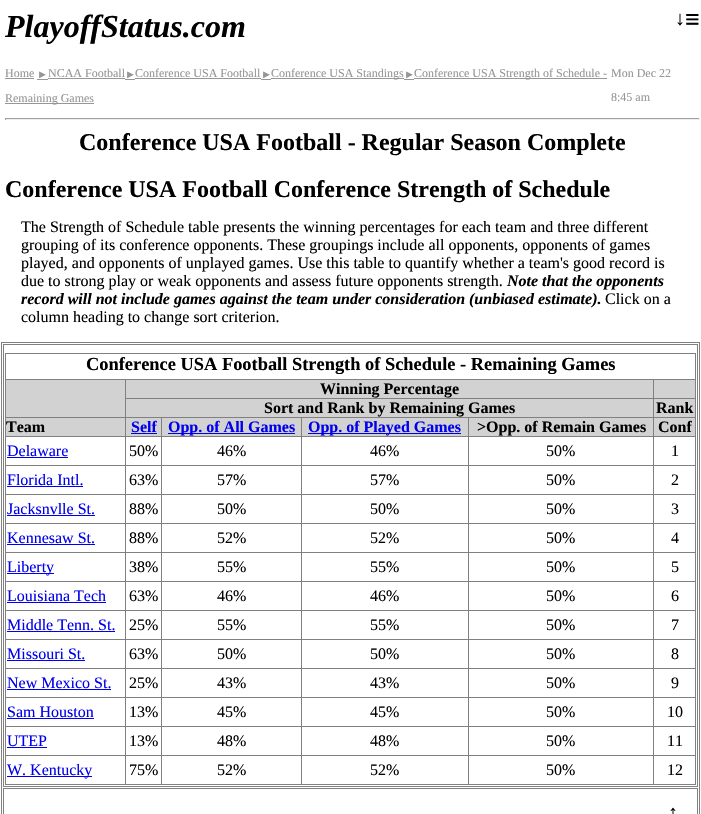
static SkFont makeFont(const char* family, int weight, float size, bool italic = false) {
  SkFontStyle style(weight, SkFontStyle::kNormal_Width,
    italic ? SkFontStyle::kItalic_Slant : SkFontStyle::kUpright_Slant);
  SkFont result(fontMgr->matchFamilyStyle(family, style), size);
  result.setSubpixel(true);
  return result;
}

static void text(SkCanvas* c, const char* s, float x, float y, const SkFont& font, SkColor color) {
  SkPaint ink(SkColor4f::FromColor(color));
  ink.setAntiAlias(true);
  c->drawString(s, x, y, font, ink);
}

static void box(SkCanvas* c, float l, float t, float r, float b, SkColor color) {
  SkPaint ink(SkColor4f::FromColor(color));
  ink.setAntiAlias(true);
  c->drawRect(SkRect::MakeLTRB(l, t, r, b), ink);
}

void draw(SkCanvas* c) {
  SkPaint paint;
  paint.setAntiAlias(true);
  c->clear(0xffffffff);
  SkFont face1 = makeFont("Liberation Serif", 700, 32, true);
  text(c, "PlayoffStatus.com", 5, 37, face1, 0xff000000);
  SkFont face2 = makeFont("Liberation Serif", 700, 20);
  text(c, "↓", 675, 25, face2, 0xff000000);
  SkFont face3 = makeFont("Liberation Serif", 700, 26);
  text(c, "≡", 685, 28, face3, 0xff000000);
  SkFont face4 = makeFont("Liberation Serif", 400, 12);
  text(c, "Home", 5, 77, face4, 0xff969696);
  box(c, 5, 78, 34, 79, 0xff969696);
  SkFont face5 = makeFont("Liberation Serif", 400, 11);
  text(c, "►", 37, 78, face5, 0xff969696);
  box(c, 37, 79, 48, 80, 0xff969696);
  box(c, 48, 78, 125, 79, 0xff969696);
  text(c, "NCAA Football", 48, 77, face4, 0xff969696);
  text(c, "►", 125, 78, face5, 0xff969696);
  box(c, 125, 79, 135, 80, 0xff969696);
  box(c, 135, 78, 261, 79, 0xff969696);
  text(c, "Conference USA Football", 135, 77, face4, 0xff969696);
  text(c, "►", 261, 78, face5, 0xff969696);
  box(c, 261, 79, 271, 80, 0xff969696);
  box(c, 271, 78, 404, 79, 0xff969696);
  text(c, "Conference USA Standings", 271, 77, face4, 0xff969696);
  text(c, "►", 404, 78, face5, 0xff969696);
  box(c, 404, 79, 414, 80, 0xff969696);
  box(c, 414, 78, 607, 79, 0xff969696);
  text(c, "Conference USA Strength of Schedule -", 414, 77, face4, 0xff969696);
  box(c, 5, 103, 94, 104, 0xff969696);
  text(c, "Remaining Games", 5, 102, face4, 0xff969696);
  text(c, "Mon Dec 22", 611, 77, face4, 0xff969696);
  text(c, "8:45 am", 611, 101, face4, 0xff969696);
  box(c, 5, 118, 700, 119, 0xff9f9f9f);
  box(c, 699, 118, 700, 120, 0xffeeeeee);
  box(c, 5, 119, 700, 120, 0xffeeeeee);
  box(c, 5, 118, 6, 120, 0xff9f9f9f);
  SkFont face6 = makeFont("Liberation Serif", 700, 24);
  text(c, "Conference USA Football - Regular Season Complete", 79, 150, face6, 0xff000000);
  text(c, "Conference USA Football Conference Strength of Schedule", 5, 197, face6, 0xff000000);
  SkFont face7 = makeFont("Liberation Serif", 400, 16);
  text(c, "The Strength of Schedule table presents the winning percentages for each team and three different", 21, 232, face7, 0xff000000);
  text(c, "grouping of its conference opponents. These groupings include all opponents, opponents of games", 21, 250, face7, 0xff000000);
  text(c, "played, and opponents of unplayed games. Use this table to quantify whether a team's good record is", 21, 268, face7, 0xff000000);
  text(c, "due to strong play or weak opponents and assess future opponents strength.", 21, 286, face7, 0xff000000);
  SkFont face8 = makeFont("Liberation Serif", 700, 16, true);
  text(c, "Note that the opponents", 507, 286, face8, 0xff000000);
  text(c, "record will not include games against the team under consideration (unbiased estimate).", 21, 304, face8, 0xff000000);
  text(c, "Click on a", 605, 304, face7, 0xff000000);
  text(c, "column heading to change sort criterion.", 21, 322, face7, 0xff000000);
  paint.setStyle(SkPaint::kStroke_Style);
  paint.setStrokeWidth(1);
  paint.setColor(0xff808080);
  c->drawRect(SkRect::MakeLTRB(1.5f, 342.5f, 699.5f, 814.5f), paint);
  c->drawRect(SkRect::MakeLTRB(3.5f, 344.5f, 697.5f, 786.5f), paint);
  box(c, 5, 353, 696, 354, 0xff808080);
  box(c, 695, 353, 696, 785, 0xff808080);
  box(c, 5, 784, 696, 785, 0xff808080);
  box(c, 5, 353, 6, 785, 0xff808080);
  SkFont face9 = makeFont("Liberation Serif", 700, 18.4f);
  text(c, "Conference USA Football Strength of Schedule - Remaining Games", 86, 370, face9, 0xff000000);
  box(c, 6, 380, 125, 417, 0xffd2d2d2);
  box(c, 653, 379, 696, 380, 0xff808080);
  box(c, 653, 398, 696, 399, 0xff808080);
  box(c, 653, 417, 696, 418, 0xff808080);
  box(c, 653, 436, 696, 437, 0xff808080);
  box(c, 653, 465, 696, 466, 0xff808080);
  box(c, 653, 494, 696, 495, 0xff808080);
  box(c, 653, 523, 696, 524, 0xff808080);
  box(c, 653, 552, 696, 553, 0xff808080);
  box(c, 653, 581, 696, 582, 0xff808080);
  box(c, 653, 610, 696, 611, 0xff808080);
  box(c, 653, 639, 696, 640, 0xff808080);
  box(c, 653, 668, 696, 669, 0xff808080);
  box(c, 653, 697, 696, 698, 0xff808080);
  box(c, 653, 726, 696, 727, 0xff808080);
  box(c, 653, 755, 696, 756, 0xff808080);
  box(c, 653, 755, 654, 785, 0xff808080);
  box(c, 468, 755, 654, 756, 0xff808080);
  box(c, 653, 726, 654, 756, 0xff808080);
  box(c, 468, 726, 654, 727, 0xff808080);
  box(c, 653, 697, 654, 727, 0xff808080);
  box(c, 468, 697, 654, 698, 0xff808080);
  box(c, 653, 668, 654, 698, 0xff808080);
  box(c, 468, 668, 654, 669, 0xff808080);
  box(c, 653, 639, 654, 669, 0xff808080);
  box(c, 468, 639, 654, 640, 0xff808080);
  box(c, 653, 610, 654, 640, 0xff808080);
  box(c, 468, 610, 654, 611, 0xff808080);
  box(c, 653, 581, 654, 611, 0xff808080);
  box(c, 468, 581, 654, 582, 0xff808080);
  box(c, 653, 552, 654, 582, 0xff808080);
  box(c, 468, 552, 654, 553, 0xff808080);
  box(c, 653, 523, 654, 553, 0xff808080);
  box(c, 468, 523, 654, 524, 0xff808080);
  box(c, 653, 494, 654, 524, 0xff808080);
  box(c, 468, 494, 654, 495, 0xff808080);
  box(c, 653, 465, 654, 495, 0xff808080);
  box(c, 468, 465, 654, 466, 0xff808080);
  box(c, 653, 436, 654, 466, 0xff808080);
  box(c, 468, 436, 654, 437, 0xff808080);
  box(c, 653, 417, 654, 437, 0xff808080);
  box(c, 468, 417, 654, 418, 0xff808080);
  box(c, 653, 398, 654, 418, 0xff808080);
  box(c, 125, 398, 654, 399, 0xff808080);
  box(c, 653, 379, 654, 399, 0xff808080);
  box(c, 125, 379, 654, 380, 0xff808080);
  box(c, 468, 755, 469, 785, 0xff808080);
  box(c, 301, 755, 469, 756, 0xff808080);
  box(c, 468, 726, 469, 756, 0xff808080);
  box(c, 301, 726, 469, 727, 0xff808080);
  box(c, 468, 697, 469, 727, 0xff808080);
  box(c, 301, 697, 469, 698, 0xff808080);
  box(c, 468, 668, 469, 698, 0xff808080);
  box(c, 301, 668, 469, 669, 0xff808080);
  box(c, 468, 639, 469, 669, 0xff808080);
  box(c, 301, 639, 469, 640, 0xff808080);
  box(c, 468, 610, 469, 640, 0xff808080);
  box(c, 301, 610, 469, 611, 0xff808080);
  box(c, 468, 581, 469, 611, 0xff808080);
  box(c, 301, 581, 469, 582, 0xff808080);
  box(c, 468, 552, 469, 582, 0xff808080);
  box(c, 301, 552, 469, 553, 0xff808080);
  box(c, 468, 523, 469, 553, 0xff808080);
  box(c, 301, 523, 469, 524, 0xff808080);
  box(c, 468, 494, 469, 524, 0xff808080);
  box(c, 301, 494, 469, 495, 0xff808080);
  box(c, 468, 465, 469, 495, 0xff808080);
  box(c, 301, 465, 469, 466, 0xff808080);
  box(c, 468, 436, 469, 466, 0xff808080);
  box(c, 301, 436, 469, 437, 0xff808080);
  box(c, 468, 417, 469, 437, 0xff808080);
  box(c, 301, 417, 469, 418, 0xff808080);
  box(c, 301, 755, 302, 785, 0xff808080);
  box(c, 161, 755, 302, 756, 0xff808080);
  box(c, 301, 726, 302, 756, 0xff808080);
  box(c, 161, 726, 302, 727, 0xff808080);
  box(c, 301, 697, 302, 727, 0xff808080);
  box(c, 161, 697, 302, 698, 0xff808080);
  box(c, 301, 668, 302, 698, 0xff808080);
  box(c, 161, 668, 302, 669, 0xff808080);
  box(c, 301, 639, 302, 669, 0xff808080);
  box(c, 161, 639, 302, 640, 0xff808080);
  box(c, 301, 610, 302, 640, 0xff808080);
  box(c, 161, 610, 302, 611, 0xff808080);
  box(c, 301, 581, 302, 611, 0xff808080);
  box(c, 161, 581, 302, 582, 0xff808080);
  box(c, 301, 552, 302, 582, 0xff808080);
  box(c, 161, 552, 302, 553, 0xff808080);
  box(c, 301, 523, 302, 553, 0xff808080);
  box(c, 161, 523, 302, 524, 0xff808080);
  box(c, 301, 494, 302, 524, 0xff808080);
  box(c, 161, 494, 302, 495, 0xff808080);
  box(c, 301, 465, 302, 495, 0xff808080);
  box(c, 161, 465, 302, 466, 0xff808080);
  box(c, 301, 436, 302, 466, 0xff808080);
  box(c, 161, 436, 302, 437, 0xff808080);
  box(c, 301, 417, 302, 437, 0xff808080);
  box(c, 161, 417, 302, 418, 0xff808080);
  box(c, 161, 755, 162, 785, 0xff808080);
  box(c, 125, 755, 162, 756, 0xff808080);
  box(c, 161, 726, 162, 756, 0xff808080);
  box(c, 125, 726, 162, 727, 0xff808080);
  box(c, 161, 697, 162, 727, 0xff808080);
  box(c, 125, 697, 162, 698, 0xff808080);
  box(c, 161, 668, 162, 698, 0xff808080);
  box(c, 125, 668, 162, 669, 0xff808080);
  box(c, 161, 639, 162, 669, 0xff808080);
  box(c, 125, 639, 162, 640, 0xff808080);
  box(c, 161, 610, 162, 640, 0xff808080);
  box(c, 125, 610, 162, 611, 0xff808080);
  box(c, 161, 581, 162, 611, 0xff808080);
  box(c, 125, 581, 162, 582, 0xff808080);
  box(c, 161, 552, 162, 582, 0xff808080);
  box(c, 125, 552, 162, 553, 0xff808080);
  box(c, 161, 523, 162, 553, 0xff808080);
  box(c, 125, 523, 162, 524, 0xff808080);
  box(c, 161, 494, 162, 524, 0xff808080);
  box(c, 125, 494, 162, 495, 0xff808080);
  box(c, 161, 465, 162, 495, 0xff808080);
  box(c, 125, 465, 162, 466, 0xff808080);
  box(c, 161, 436, 162, 466, 0xff808080);
  box(c, 125, 436, 162, 437, 0xff808080);
  box(c, 161, 417, 162, 437, 0xff808080);
  box(c, 125, 417, 162, 418, 0xff808080);
  box(c, 125, 755, 126, 785, 0xff808080);
  box(c, 5, 755, 126, 756, 0xff808080);
  box(c, 125, 726, 126, 756, 0xff808080);
  box(c, 5, 726, 126, 727, 0xff808080);
  box(c, 125, 697, 126, 727, 0xff808080);
  box(c, 5, 697, 126, 698, 0xff808080);
  box(c, 125, 668, 126, 698, 0xff808080);
  box(c, 5, 668, 126, 669, 0xff808080);
  box(c, 125, 639, 126, 669, 0xff808080);
  box(c, 5, 639, 126, 640, 0xff808080);
  box(c, 125, 610, 126, 640, 0xff808080);
  box(c, 5, 610, 126, 611, 0xff808080);
  box(c, 125, 581, 126, 611, 0xff808080);
  box(c, 5, 581, 126, 582, 0xff808080);
  box(c, 125, 552, 126, 582, 0xff808080);
  box(c, 5, 552, 126, 553, 0xff808080);
  box(c, 125, 523, 126, 553, 0xff808080);
  box(c, 5, 523, 126, 524, 0xff808080);
  box(c, 125, 494, 126, 524, 0xff808080);
  box(c, 5, 494, 126, 495, 0xff808080);
  box(c, 125, 465, 126, 495, 0xff808080);
  box(c, 5, 465, 126, 466, 0xff808080);
  box(c, 125, 436, 126, 466, 0xff808080);
  box(c, 5, 436, 126, 437, 0xff808080);
  box(c, 125, 417, 126, 437, 0xff808080);
  box(c, 5, 417, 126, 418, 0xff808080);
  box(c, 125, 398, 126, 418, 0xff808080);
  box(c, 125, 379, 126, 399, 0xff808080);
  box(c, 5, 379, 126, 380, 0xff808080);
  box(c, 126, 380, 653, 398, 0xffd2d2d2);
  SkFont face10 = makeFont("Liberation Serif", 700, 16);
  text(c, "Winning Percentage", 320, 394, face10, 0xff000000);
  box(c, 654, 380, 695, 398, 0xffd2d2d2);
  box(c, 126, 399, 653, 417, 0xffd2d2d2);
  text(c, "Sort and Rank by Remaining Games", 264, 413, face10, 0xff000000);
  box(c, 654, 399, 695, 417, 0xffd2d2d2);
  text(c, "Rank", 656, 413, face10, 0xff000000);
  box(c, 6, 418, 125, 436, 0xffd2d2d2);
  text(c, "Team", 6, 432, face10, 0xff000000);
  box(c, 126, 418, 161, 436, 0xffd2d2d2);
  text(c, "Self", 131, 432, face10, 0xff0000ee);
  box(c, 131, 433, 157, 434, 0xff0000ee);
  box(c, 162, 418, 301, 436, 0xffd2d2d2);
  box(c, 168, 433, 295, 434, 0xff0000ee);
  text(c, "Opp. of All Games", 168, 432, face10, 0xff0000ee);
  box(c, 302, 418, 468, 436, 0xffd2d2d2);
  box(c, 308, 433, 461, 434, 0xff0000ee);
  text(c, "Opp. of Played Games", 308, 432, face10, 0xff0000ee);
  box(c, 469, 418, 653, 436, 0xffd2d2d2);
  text(c, ">Opp. of Remain Games", 477, 432, face10, 0xff000000);
  box(c, 654, 418, 695, 436, 0xffd2d2d2);
  text(c, "Conf", 658, 432, face10, 0xff000000);
  text(c, "Delaware", 7, 456, face7, 0xff0000ee);
  box(c, 7, 457, 68, 458, 0xff0000ee);
  text(c, "50%", 129, 456, face7, 0xff000000);
  text(c, "46%", 217, 456, face7, 0xff000000);
  text(c, "46%", 370, 456, face7, 0xff000000);
  text(c, "50%", 546, 456, face7, 0xff000000);
  text(c, "1", 671, 456, face7, 0xff000000);
  text(c, "Florida Intl.", 7, 485, face7, 0xff0000ee);
  box(c, 7, 486, 83, 487, 0xff0000ee);
  text(c, "63%", 129, 485, face7, 0xff000000);
  text(c, "57%", 217, 485, face7, 0xff000000);
  text(c, "57%", 370, 485, face7, 0xff000000);
  text(c, "50%", 546, 485, face7, 0xff000000);
  text(c, "2", 671, 485, face7, 0xff000000);
  text(c, "Jacksnvlle St.", 7, 514, face7, 0xff0000ee);
  box(c, 7, 515, 95, 516, 0xff0000ee);
  text(c, "88%", 129, 514, face7, 0xff000000);
  text(c, "50%", 217, 514, face7, 0xff000000);
  text(c, "50%", 370, 514, face7, 0xff000000);
  text(c, "50%", 546, 514, face7, 0xff000000);
  text(c, "3", 671, 514, face7, 0xff000000);
  text(c, "Kennesaw St.", 7, 543, face7, 0xff0000ee);
  box(c, 7, 544, 95, 545, 0xff0000ee);
  text(c, "88%", 129, 543, face7, 0xff000000);
  text(c, "52%", 217, 543, face7, 0xff000000);
  text(c, "52%", 370, 543, face7, 0xff000000);
  text(c, "50%", 546, 543, face7, 0xff000000);
  text(c, "4", 671, 543, face7, 0xff000000);
  box(c, 7, 573, 54, 574, 0xff0000ee);
  text(c, "Liberty", 7, 572, face7, 0xff0000ee);
  text(c, "38%", 129, 572, face7, 0xff000000);
  text(c, "55%", 217, 572, face7, 0xff000000);
  text(c, "55%", 370, 572, face7, 0xff000000);
  text(c, "50%", 546, 572, face7, 0xff000000);
  text(c, "5", 671, 572, face7, 0xff000000);
  text(c, "Louisiana Tech", 7, 601, face7, 0xff0000ee);
  box(c, 7, 602, 106, 603, 0xff0000ee);
  text(c, "63%", 129, 601, face7, 0xff000000);
  text(c, "46%", 217, 601, face7, 0xff000000);
  text(c, "46%", 370, 601, face7, 0xff000000);
  text(c, "50%", 546, 601, face7, 0xff000000);
  text(c, "6", 671, 601, face7, 0xff000000);
  text(c, "Middle Tenn. St.", 7, 630, face7, 0xff0000ee);
  box(c, 7, 631, 115, 632, 0xff0000ee);
  text(c, "25%", 129, 630, face7, 0xff000000);
  text(c, "55%", 217, 630, face7, 0xff000000);
  text(c, "55%", 370, 630, face7, 0xff000000);
  text(c, "50%", 546, 630, face7, 0xff000000);
  text(c, "7", 671, 630, face7, 0xff000000);
  text(c, "Missouri St.", 7, 659, face7, 0xff0000ee);
  box(c, 7, 660, 85, 661, 0xff0000ee);
  text(c, "63%", 129, 659, face7, 0xff000000);
  text(c, "50%", 217, 659, face7, 0xff000000);
  text(c, "50%", 370, 659, face7, 0xff000000);
  text(c, "50%", 546, 659, face7, 0xff000000);
  text(c, "8", 671, 659, face7, 0xff000000);
  text(c, "New Mexico St.", 7, 688, face7, 0xff0000ee);
  box(c, 7, 689, 111, 690, 0xff0000ee);
  text(c, "25%", 129, 688, face7, 0xff000000);
  text(c, "43%", 217, 688, face7, 0xff000000);
  text(c, "43%", 370, 688, face7, 0xff000000);
  text(c, "50%", 546, 688, face7, 0xff000000);
  text(c, "9", 671, 688, face7, 0xff000000);
  text(c, "Sam Houston", 7, 717, face7, 0xff0000ee);
  box(c, 7, 718, 94, 719, 0xff0000ee);
  text(c, "13%", 129, 717, face7, 0xff000000);
  text(c, "45%", 217, 717, face7, 0xff000000);
  text(c, "45%", 370, 717, face7, 0xff000000);
  text(c, "50%", 546, 717, face7, 0xff000000);
  text(c, "10", 667, 717, face7, 0xff000000);
  text(c, "UTEP", 7, 746, face7, 0xff0000ee);
  box(c, 7, 747, 47, 748, 0xff0000ee);
  text(c, "13%", 129, 746, face7, 0xff000000);
  text(c, "48%", 217, 746, face7, 0xff000000);
  text(c, "48%", 370, 746, face7, 0xff000000);
  text(c, "50%", 546, 746, face7, 0xff000000);
  text(c, "11", 667, 746, face7, 0xff000000);
  box(c, 7, 776, 92, 777, 0xff0000ee);
  text(c, "W. Kentucky", 7, 775, face7, 0xff0000ee);
  text(c, "75%", 129, 775, face7, 0xff000000);
  text(c, "52%", 217, 775, face7, 0xff000000);
  text(c, "52%", 370, 775, face7, 0xff000000);
  text(c, "50%", 546, 775, face7, 0xff000000);
  text(c, "12", 667, 775, face7, 0xff000000);
  c->drawRect(SkRect::MakeLTRB(3.5f, 788.5f, 697.5f, 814.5f), paint);
  text(c, "↑", 668, 819, face2, 0xff000000);
}
